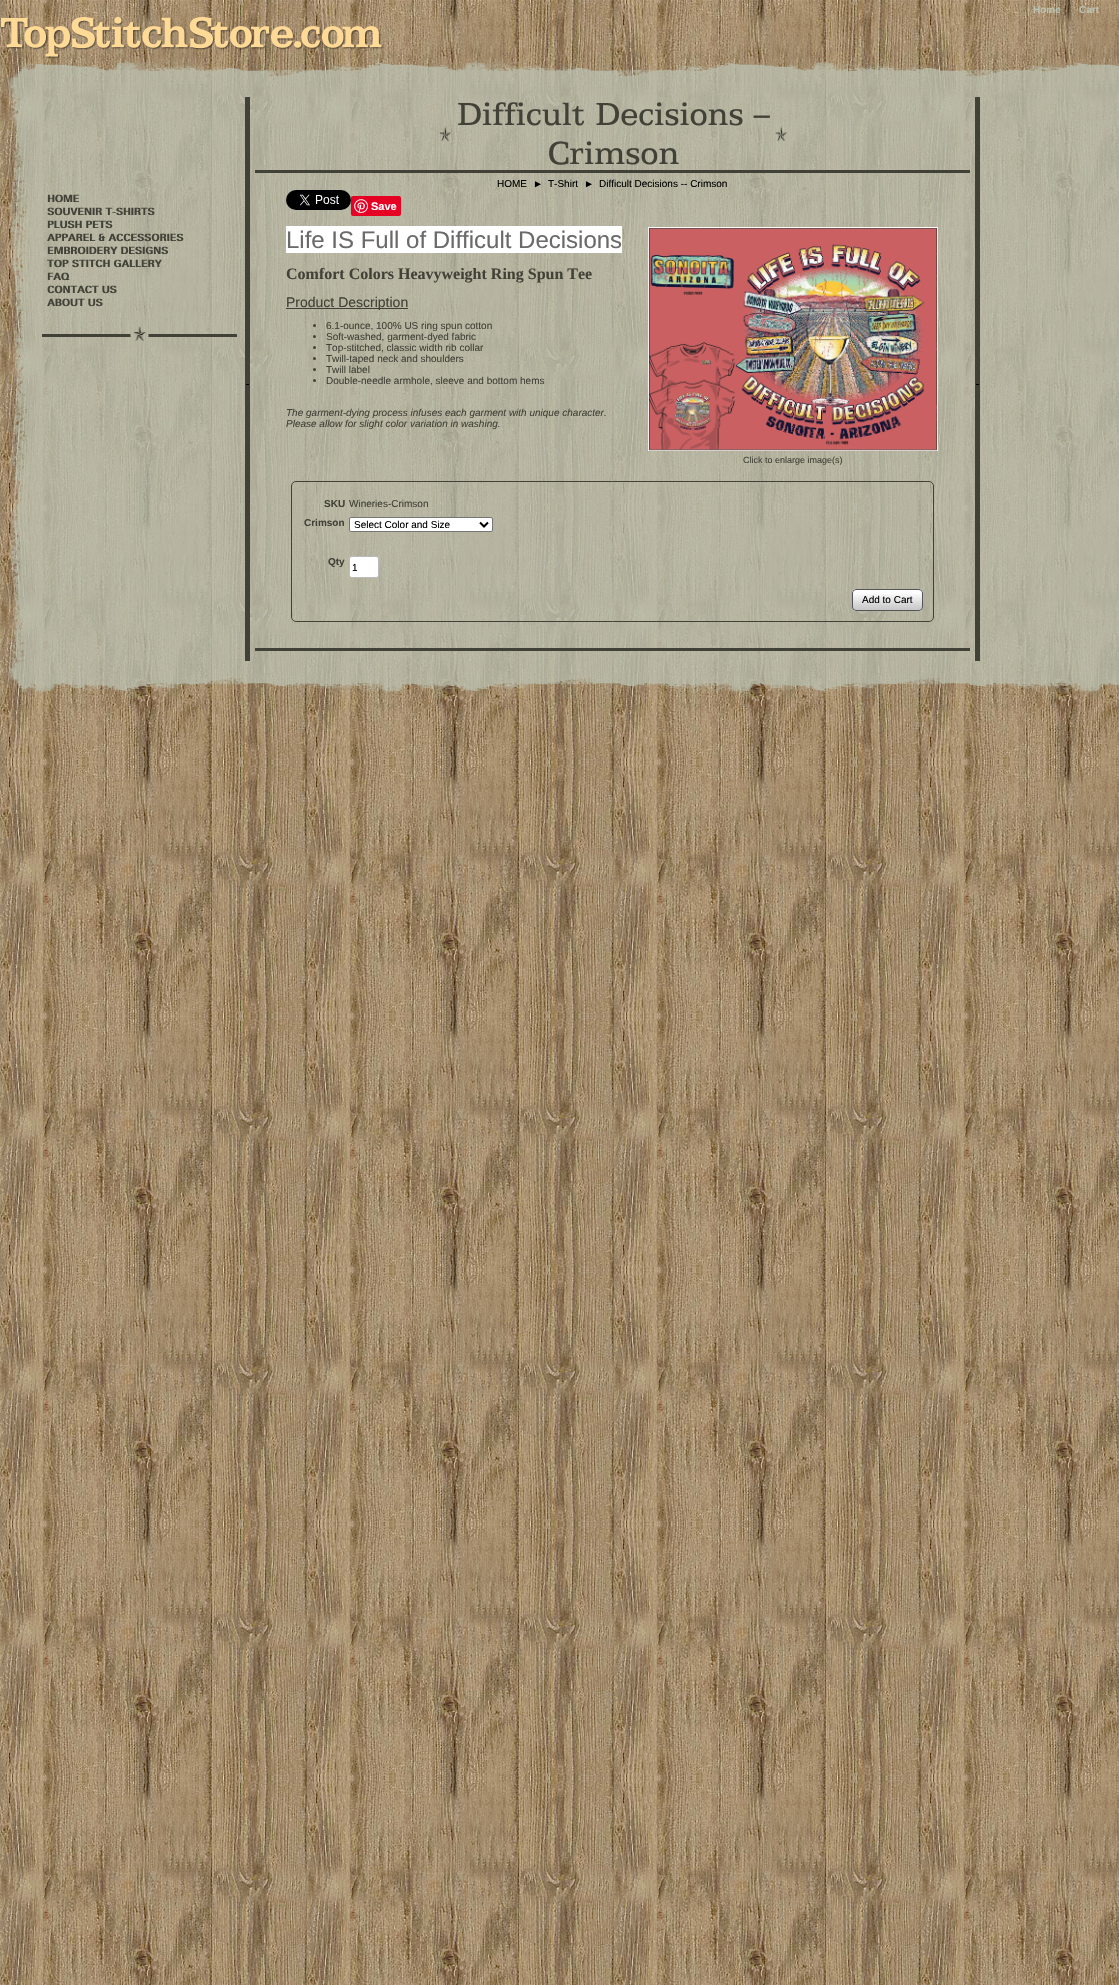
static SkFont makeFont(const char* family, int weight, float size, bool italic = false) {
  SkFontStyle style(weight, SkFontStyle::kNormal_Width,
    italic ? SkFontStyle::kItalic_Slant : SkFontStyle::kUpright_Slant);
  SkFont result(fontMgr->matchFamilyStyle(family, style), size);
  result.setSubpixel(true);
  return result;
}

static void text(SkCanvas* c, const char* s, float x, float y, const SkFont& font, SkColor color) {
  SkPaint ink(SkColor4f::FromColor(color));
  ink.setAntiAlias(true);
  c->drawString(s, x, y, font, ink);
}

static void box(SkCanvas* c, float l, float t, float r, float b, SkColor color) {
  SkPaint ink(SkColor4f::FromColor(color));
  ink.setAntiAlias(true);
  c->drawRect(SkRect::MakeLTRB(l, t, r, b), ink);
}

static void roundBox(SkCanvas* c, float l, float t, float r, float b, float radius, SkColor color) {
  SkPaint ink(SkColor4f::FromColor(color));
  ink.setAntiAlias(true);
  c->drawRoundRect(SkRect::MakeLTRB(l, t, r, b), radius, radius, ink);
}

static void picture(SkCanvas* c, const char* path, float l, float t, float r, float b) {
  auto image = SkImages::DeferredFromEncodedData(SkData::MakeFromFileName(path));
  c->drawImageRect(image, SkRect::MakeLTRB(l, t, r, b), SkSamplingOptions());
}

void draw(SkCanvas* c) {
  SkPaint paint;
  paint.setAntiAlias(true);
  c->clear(0xffffffff);
  picture(c, "img_01.png", 0, 0, 1119, 1985);
  SkFont face1 = makeFont("Liberation Sans", 700, 10);
  text(c, "Home", 1033, 13, face1, 0xffbcc2b2);
  text(c, "Cart", 1079, 13, face1, 0xffbcc2b2);
  picture(c, "img_02.png", 1, 17, 384, 59);
  picture(c, "img_03.png", 7, 61, 36, 94);
  picture(c, "img_04.png", 36, 60, 1119, 94);
  picture(c, "img_05.png", 10, 94, 36, 662);
  box(c, 36, 94, 1119, 662, 0xbfbcc2b2);
  box(c, 245, 97, 250, 661, 0xff414137);
  box(c, 246, 384, 249, 385, 0xff000000);
  picture(c, "img_06.png", 439, 102, 787, 165);
  box(c, 255, 170, 970, 173, 0xff414137);
  SkFont face2 = makeFont("Liberation Sans", 400, 10);
  text(c, "HOME", 497, 187, face2, 0xff000000);
  text(c, "►", 533, 187, face2, 0xff000000);
  text(c, "T-Shirt", 548, 187, face2, 0xff000000);
  text(c, "►", 584, 187, face2, 0xff000000);
  text(c, "Difficult Decisions -- Crimson", 599, 187, face2, 0xff000000);
  box(c, 975, 97, 980, 661, 0xff414137);
  box(c, 976, 384, 979, 385, 0xff000000);
  picture(c, "img_07.png", 47, 194, 79, 203);
  picture(c, "img_08.png", 47, 207, 155, 216);
  picture(c, "img_09.png", 47, 220, 113, 229);
  picture(c, "img_10.png", 47, 233, 184, 242);
  picture(c, "img_11.png", 47, 246, 168, 255);
  picture(c, "img_12.png", 47, 259, 162, 268);
  picture(c, "img_13.png", 47, 272, 70, 281);
  picture(c, "img_14.png", 47, 285, 117, 294);
  picture(c, "img_15.png", 47, 298, 103, 307);
  picture(c, "img_16.png", 42, 326, 237, 341);
  picture(c, "img_17.png", 286, 190, 351, 210);
  roundBox(c, 351, 196, 401, 216, 2, 0xffe60023);
  picture(c, "img_18.png", 354, 199, 368, 213);
  SkFont face3 = makeFont("Liberation Sans", 700, 11);
  text(c, "Save", 371, 210, face3, 0xffffffff);
  box(c, 286, 226, 622, 253, 0xffffffff);
  SkFont face4 = makeFont("Liberation Sans", 400, 24);
  text(c, "Life IS Full of Difficult Decisions", 286, 248, face4, 0xff6a6a6a);
  SkFont face5 = makeFont("Liberation Serif", 700, 16);
  text(c, "Comfort Colors Heavyweight Ring Spun Tee", 286, 279, face5, 0xff414137);
  box(c, 286, 308, 408, 309, 0xff414137);
  SkFont face6 = makeFont("Liberation Sans", 400, 14);
  text(c, "Product Description", 286, 307, face6, 0xff414137);
  paint.setColor(0xff414137);
  c->drawCircle(314.5f, 325.5f, 1.5f, paint);
  text(c, "6.1-ounce, 100% US ring spun cotton", 326, 329, face2, 0xff414137);
  c->drawCircle(314.5f, 336.5f, 1.5f, paint);
  text(c, "Soft-washed, garment-dyed fabric", 326, 340, face2, 0xff414137);
  c->drawCircle(314.5f, 347.5f, 1.5f, paint);
  text(c, "Top-stitched, classic width rib collar", 326, 351, face2, 0xff414137);
  c->drawCircle(314.5f, 358.5f, 1.5f, paint);
  text(c, "Twill-taped neck and shoulders", 326, 362, face2, 0xff414137);
  c->drawCircle(314.5f, 369.5f, 1.5f, paint);
  text(c, "Twill label", 326, 373, face2, 0xff414137);
  c->drawCircle(314.5f, 380.5f, 1.5f, paint);
  text(c, "Double-needle armhole, sleeve and bottom hems", 326, 384, face2, 0xff414137);
  SkFont face7 = makeFont("Liberation Sans", 400, 10, true);
  text(c, "The garment-dying process infuses each garment with unique character.", 286, 416, face7, 0xff414137);
  text(c, "Please allow for slight color variation in washing.", 286, 427, face7, 0xff414137);
  picture(c, "img_19.png", 648, 227, 938, 451);
  SkFont face8 = makeFont("Liberation Sans", 400, 9);
  text(c, "Click to enlarge image(s)", 743, 463, face8, 0xff414137);
  paint.setStyle(SkPaint::kStroke_Style);
  paint.setStrokeWidth(1);
  c->drawRoundRect(SkRect::MakeLTRB(291.5f, 481.5f, 933.5f, 621.5f), 4.5f, 4.5f, paint);
  text(c, "SKU", 324, 507, face1, 0xff414137);
  text(c, "Wineries-Crimson", 349, 507, face2, 0xff414137);
  text(c, "Crimson", 304, 526, face1, 0xff414137);
  paint.setStyle(SkPaint::kFill_Style);
  paint.setColor(0xffffffff);
  c->drawRoundRect(SkRect::MakeLTRB(349.5f, 517.5f, 492.5f, 531.5f), 1.5f, 1.5f, paint);
  paint.setStyle(SkPaint::kStroke_Style);
  paint.setColor(0xff767676);
  c->drawRoundRect(SkRect::MakeLTRB(349.5f, 517.5f, 492.5f, 531.5f), 1.5f, 1.5f, paint);
  paint.setStrokeWidth(2);
  paint.setColor(0xff000000);
  c->drawPath(SkPathBuilder().moveTo(480, 522.5f).lineTo(484, 526.5f).lineTo(488, 522.5f).detach(), paint);
  text(c, "Select Color and Size", 354, 528, face2, 0xff000000);
  text(c, "Qty", 328, 565, face1, 0xff414137);
  paint.setStyle(SkPaint::kFill_Style);
  paint.setColor(0xffffffff);
  c->drawRoundRect(SkRect::MakeLTRB(349.5f, 556.5f, 378.5f, 577.5f), 2.5f, 2.5f, paint);
  paint.setStyle(SkPaint::kStroke_Style);
  paint.setStrokeWidth(1);
  paint.setColor(0xffbbbbbb);
  c->drawRoundRect(SkRect::MakeLTRB(349.5f, 556.5f, 378.5f, 577.5f), 2.5f, 2.5f, paint);
  roundBox(c, 350, 557, 378, 577, 3, 0xffffffff);
  text(c, "1", 352, 571, face2, 0xff000000);
  roundBox(c, 852, 589, 923, 611, 4, 0xfffdfdfd);
  picture(c, "img_20.png", 852, 594, 923, 610);
  paint.setColor(0xff555555);
  c->drawRoundRect(SkRect::MakeLTRB(852.5f, 589.5f, 922.5f, 610.5f), 3.5f, 3.5f, paint);
  text(c, "Add to Cart", 862, 603, face2, 0xff000000);
  box(c, 255, 648, 970, 651, 0xff414137);
  picture(c, "img_21.png", 7, 662, 36, 692);
  picture(c, "img_22.png", 36, 662, 1119, 694);
}
